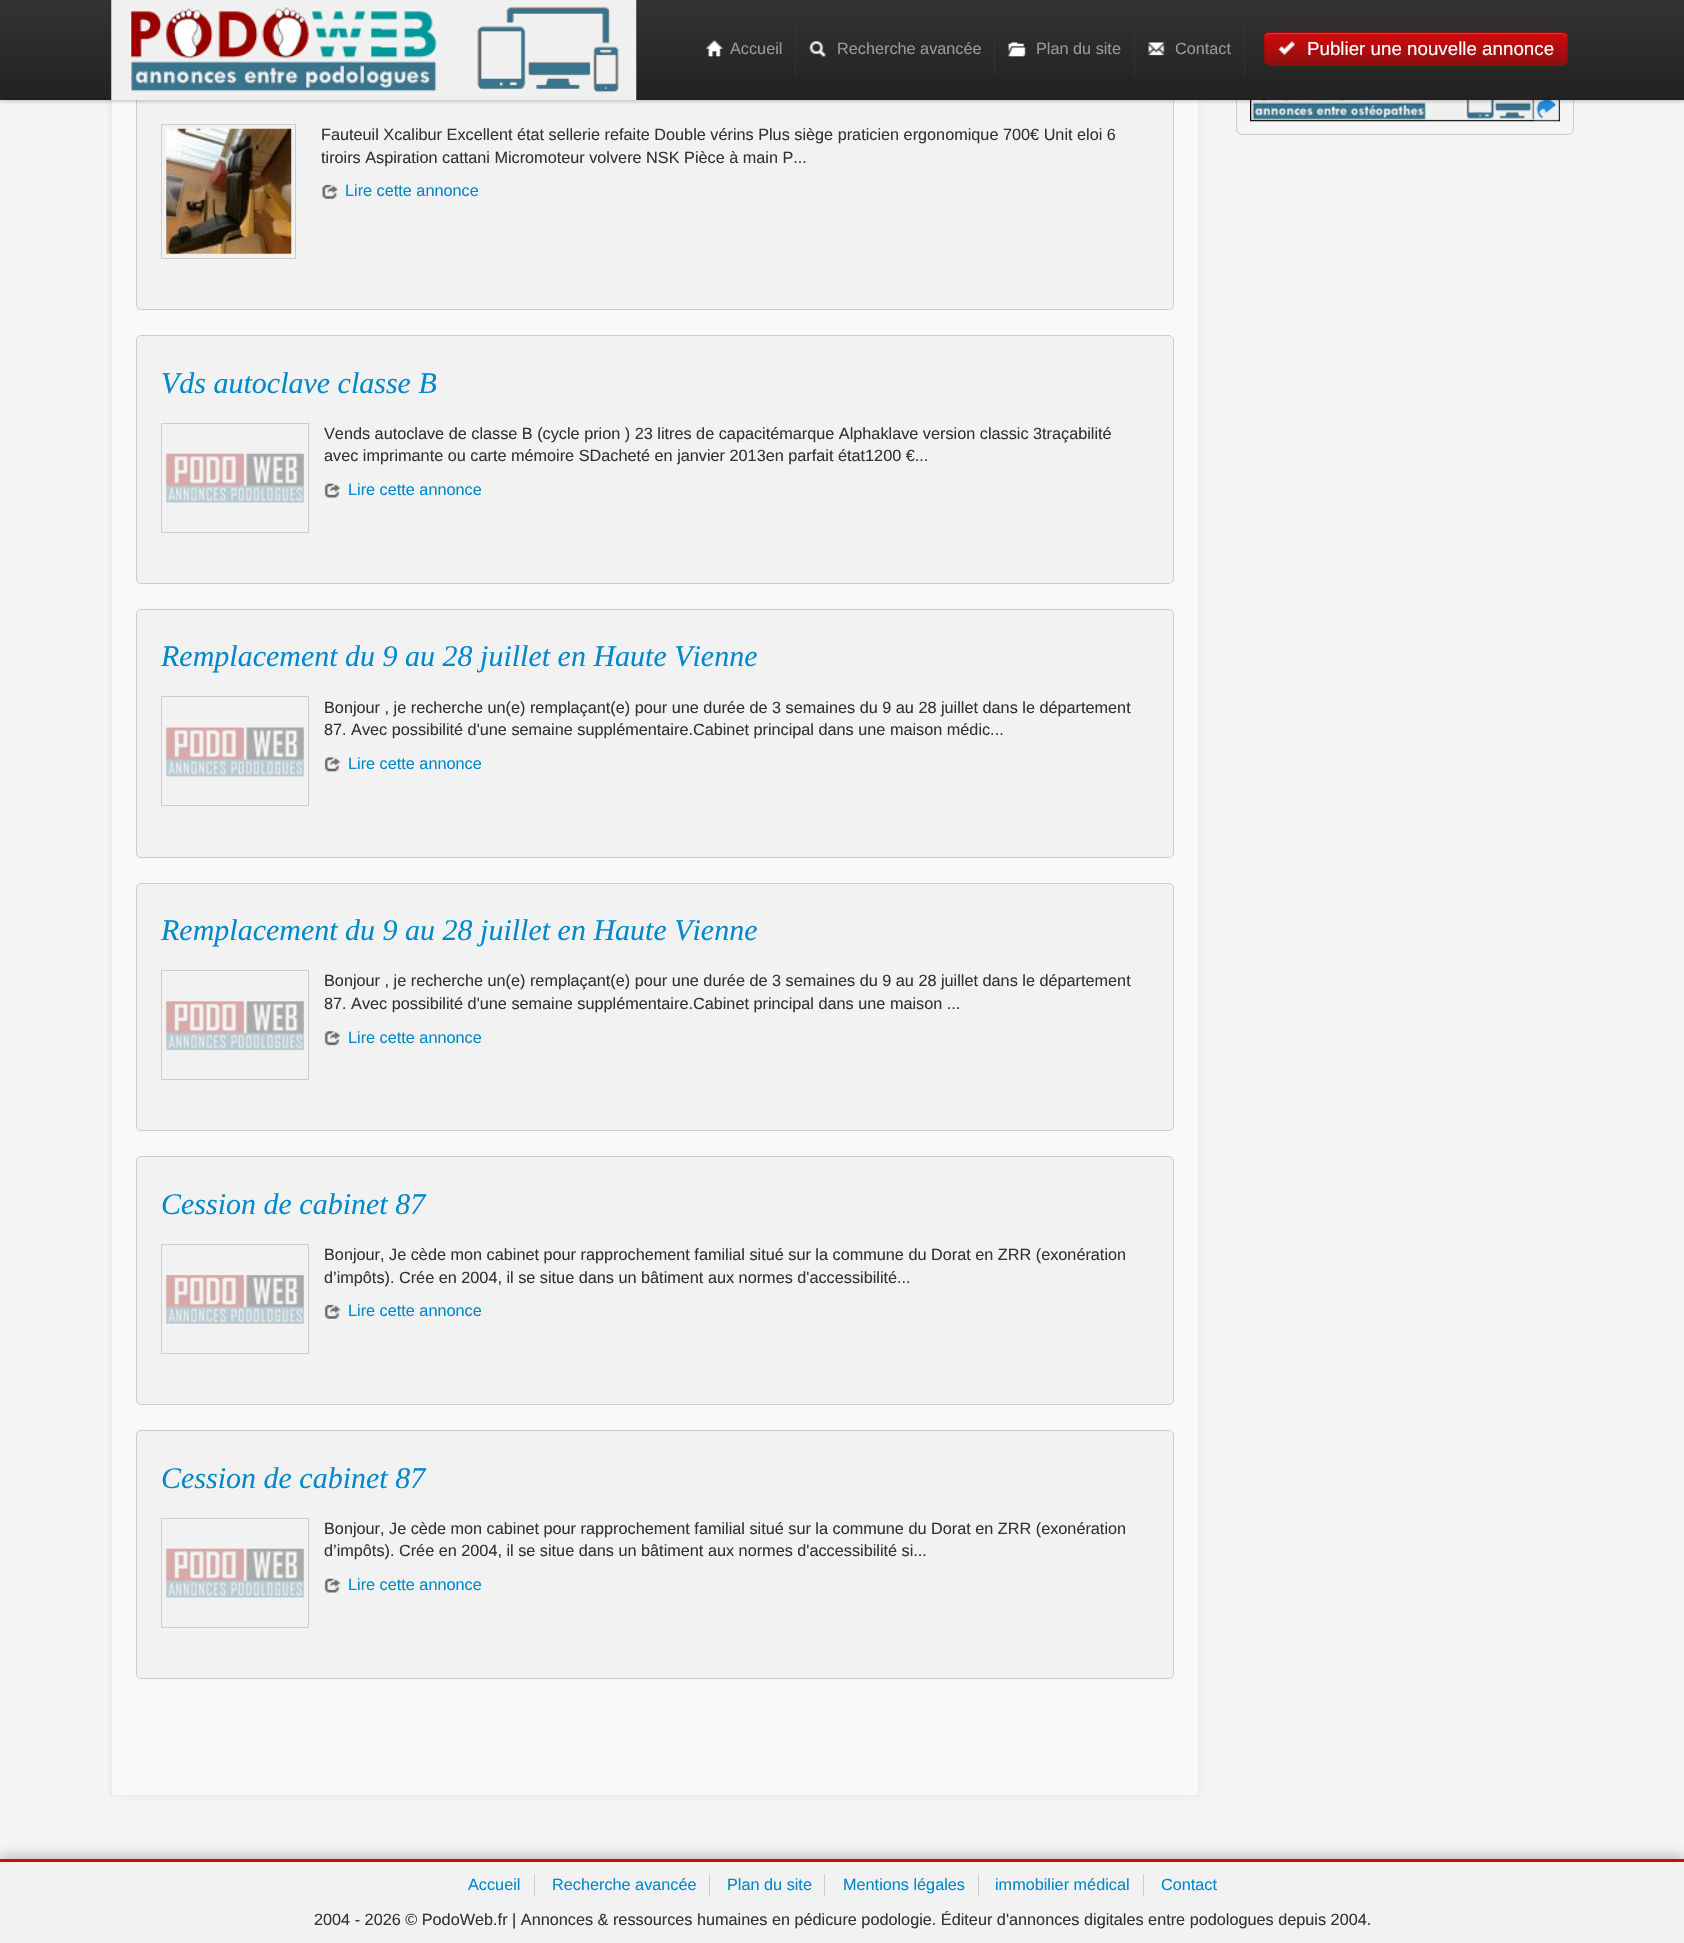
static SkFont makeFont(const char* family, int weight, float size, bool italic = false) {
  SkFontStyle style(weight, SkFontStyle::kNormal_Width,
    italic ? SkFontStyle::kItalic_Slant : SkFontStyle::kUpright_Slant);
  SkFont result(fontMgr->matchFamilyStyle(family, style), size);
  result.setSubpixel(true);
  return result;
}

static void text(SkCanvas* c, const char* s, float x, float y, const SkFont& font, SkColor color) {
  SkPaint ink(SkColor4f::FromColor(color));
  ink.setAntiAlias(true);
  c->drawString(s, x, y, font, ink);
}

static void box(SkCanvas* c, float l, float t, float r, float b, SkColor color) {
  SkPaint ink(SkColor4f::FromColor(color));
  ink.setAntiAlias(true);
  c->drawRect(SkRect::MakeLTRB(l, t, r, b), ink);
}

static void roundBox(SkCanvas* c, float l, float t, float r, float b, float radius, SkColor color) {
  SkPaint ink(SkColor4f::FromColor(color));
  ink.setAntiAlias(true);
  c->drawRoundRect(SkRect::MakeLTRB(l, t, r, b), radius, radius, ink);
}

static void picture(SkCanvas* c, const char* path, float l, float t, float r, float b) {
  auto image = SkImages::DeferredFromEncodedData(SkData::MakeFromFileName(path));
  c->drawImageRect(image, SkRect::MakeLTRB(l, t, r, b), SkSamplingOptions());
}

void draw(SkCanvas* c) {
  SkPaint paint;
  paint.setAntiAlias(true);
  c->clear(0xfff5f5f5);
  paint.setStyle(SkPaint::kStroke_Style);
  paint.setStrokeWidth(1);
  paint.setColor(0xffcccccc);
  c->drawRoundRect(SkRect::MakeLTRB(1236.5f, -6.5f, 1573.5f, 134.5f), 5.5f, 5.5f, paint);
  picture(c, "img_07.png", 1250, 100, 1560, 122);
  paint.setStyle(SkPaint::kFill_Style);
  paint.setColor(0x80dcdcdc);
  paint.setMaskFilter(SkMaskFilter::MakeBlur(kNormal_SkBlurStyle, 6));
  c->drawRoundRect(SkRect::MakeLTRB(111, -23, 1199, 1796), 5, 5, paint);
  paint.setMaskFilter(nullptr);
  roundBox(c, 111, -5, 1199, 1796, 5, 0xfff9f9f9);
  paint.setStyle(SkPaint::kStroke_Style);
  paint.setColor(0x0d000000);
  c->drawRect(SkRect::MakeLTRB(111.5f, -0.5f, 1198.5f, 1795.5f), paint);
  paint.setStyle(SkPaint::kFill_Style);
  paint.setColor(0xfff2f2f2);
  c->drawRoundRect(SkRect::MakeLTRB(136.5f, 36.5f, 1173.5f, 309.5f), 4.5f, 4.5f, paint);
  paint.setStyle(SkPaint::kStroke_Style);
  paint.setColor(0xffcccccc);
  c->drawRoundRect(SkRect::MakeLTRB(136.5f, 36.5f, 1173.5f, 309.5f), 4.5f, 4.5f, paint);
  paint.setStyle(SkPaint::kFill_Style);
  paint.setColor(0x40000000);
  paint.setMaskFilter(SkMaskFilter::MakeBlur(kNormal_SkBlurStyle, 2));
  c->drawRect(SkRect::MakeLTRB(0, 1, 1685, 101), paint);
  paint.setMaskFilter(nullptr);
  {
    const SkColor colors[] = {0xff333333, 0xff222222};
    const float stops[] = {0, 1};
    const SkPoint ends[] = {{843, 0}, {843, 100}};
    paint.setShader(SkGradientShader::MakeLinear(ends, colors, stops, 2, SkTileMode::kClamp));
    paint.setAlpha(255);
  }
  c->drawRect(SkRect::MakeLTRB(0, 0, 1684, 99), paint);
  box(c, 0, 99, 1684, 100, 0xff1f1f1f);
  picture(c, "img_01.png", 111, 0, 637, 100);
  box(c, 795, 24, 796, 76, 0xff333333);
  picture(c, "img_02.png", 706, 40, 724, 57);
  SkFont face1 = makeFont("Liberation Sans", 400, 16.25f);
  text(c, "Accueil", 730, 54, face1, 0xff999999);
  box(c, 994, 24, 995, 76, 0xff333333);
  picture(c, "img_03.png", 809, 41, 827, 58);
  text(c, "Recherche avancée", 837, 54, face1, 0xff999999);
  box(c, 1134, 24, 1135, 76, 0xff333333);
  picture(c, "img_04.png", 1008, 42, 1026, 57);
  text(c, "Plan du site", 1036, 54, face1, 0xff999999);
  box(c, 1244, 24, 1245, 76, 0xff333333);
  picture(c, "img_05.png", 1148, 42, 1165, 56);
  text(c, "Contact", 1175, 54, face1, 0xff999999);
  c->save();
  c->clipPath(SkPathBuilder().moveTo(1270, 31).lineTo(1562, 31).cubicTo(1565.5f, 31, 1568, 33.5f, 1568, 37).lineTo(1568, 60).cubicTo(1568, 63.5f, 1565.5f, 66, 1562, 66).lineTo(1270, 66).cubicTo(1266.5f, 66, 1264, 63.5f, 1264, 60).lineTo(1264, 37).cubicTo(1264, 33.5f, 1266.5f, 31, 1270, 31).close().detach(), true);
  {
    const SkColor colors[] = {0xffd30a0a, 0xff8d0f0f};
    const float stops[] = {0, 1};
    const SkPoint ends[] = {{1416, 0}, {1416, 33}};
    paint.setShader(SkGradientShader::MakeLinear(ends, colors, stops, 2, SkTileMode::kClamp));
    paint.setAlpha(255);
  }
  c->drawRect(SkRect::MakeLTRB(1264, 31, 1568, 33), paint);
  {
    const SkColor colors[] = {0xffd30a0a, 0xff8d0f0f};
    const float stops[] = {0, 1};
    const SkPoint ends[] = {{1416, 32}, {1416, 65}};
    paint.setShader(SkGradientShader::MakeLinear(ends, colors, stops, 2, SkTileMode::kClamp));
    paint.setAlpha(255);
  }
  c->drawRect(SkRect::MakeLTRB(1264, 33, 1568, 65), paint);
  {
    const SkColor colors[] = {0xffd30a0a, 0xff8d0f0f};
    const float stops[] = {0, 1};
    const SkPoint ends[] = {{1416, 65}, {1416, 98}};
    paint.setShader(SkGradientShader::MakeLinear(ends, colors, stops, 2, SkTileMode::kClamp));
    paint.setAlpha(255);
  }
  c->drawRect(SkRect::MakeLTRB(1264, 65, 1568, 66), paint);
  c->restore();
  paint.setShader(nullptr);
  paint.setColor(0xffd93b3b);
  c->drawPath(SkPathBuilder().moveTo(1270, 34).lineTo(1561, 34).cubicTo(1564, 34, 1566, 36, 1566, 39).lineTo(1566, 38).cubicTo(1566, 35, 1564, 33, 1561, 33).lineTo(1270, 33).cubicTo(1267, 33, 1265, 35, 1265, 38).lineTo(1265, 39).cubicTo(1265, 36, 1267, 34, 1270, 34).close().detach(), paint);
  paint.setStyle(SkPaint::kStroke_Style);
  paint.setStrokeWidth(1.2f);
  paint.setColor(0x40000000);
  c->drawPath(SkPathBuilder().moveTo(1565, 64).cubicTo(1564, 65, 1562.5f, 65.5f, 1561, 65.5f).lineTo(1269.5f, 65.5f).lineTo(1266, 64).detach(), paint);
  paint.setColor(0x1a000000);
  c->drawPath(SkPathBuilder().moveTo(1266, 64).cubicTo(1265, 63, 1264.5f, 61.5f, 1264.5f, 60).lineTo(1264.5f, 37.5f).cubicTo(1264.5f, 36, 1265, 34.5f, 1266, 33.5f).cubicTo(1267, 32.5f, 1268.5f, 32, 1270, 32).lineTo(1561, 32).cubicTo(1562.5f, 32, 1564, 32.5f, 1565, 33.5f).cubicTo(1566.5f, 34.5f, 1567, 36, 1567, 37.5f).lineTo(1567, 60).cubicTo(1567, 61.5f, 1566.5f, 63, 1565, 64).detach(), paint);
  picture(c, "img_06.png", 1278, 41, 1296, 56);
  SkFont face2 = makeFont("Liberation Sans", 400, 18.75f);
  text(c, "Publier une nouvelle annonce", 1307, 55, face2, 0xffffffff);
  paint.setStrokeWidth(1);
  paint.setColor(0xffcccccc);
  c->drawRect(SkRect::MakeLTRB(161.5f, 124.5f, 295.5f, 258.5f), paint);
  picture(c, "img_08.png", 166, 128, 292, 254);
  text(c, "Fauteuil Xcalibur Excellent état sellerie refaite Double vérins Plus siège praticien ergonomique 700€ Unit eloi 6", 321, 140, face1, 0xff333333);
  text(c, "tiroirs Aspiration cattani Micromoteur volvere NSK Pièce à main P...", 321, 163, face1, 0xff333333);
  picture(c, "img_09.png", 322, 184, 338, 199);
  text(c, "Lire cette annonce", 345, 196, face1, 0xff0088cc);
  paint.setStyle(SkPaint::kFill_Style);
  paint.setColor(0xfff2f2f2);
  c->drawRoundRect(SkRect::MakeLTRB(136.5f, 335.5f, 1173.5f, 583.5f), 4.5f, 4.5f, paint);
  paint.setStyle(SkPaint::kStroke_Style);
  paint.setColor(0xffcccccc);
  c->drawRoundRect(SkRect::MakeLTRB(136.5f, 335.5f, 1173.5f, 583.5f), 4.5f, 4.5f, paint);
  SkFont face3 = makeFont("Liberation Serif", 400, 30, true);
  text(c, "Vds autoclave classe B", 161, 393, face3, 0xff0088cc);
  c->drawRect(SkRect::MakeLTRB(161.5f, 423.5f, 308.5f, 532.5f), paint);
  picture(c, "img_10.png", 166, 453, 304, 503);
  text(c, "Vends autoclave de classe B (cycle prion ) 23 litres de capacitémarque Alphaklave version classic 3traçabilité", 324, 439, face1, 0xff333333);
  text(c, "avec imprimante ou carte mémoire SDacheté en janvier 2013en parfait état1200 €...", 324, 461, face1, 0xff333333);
  picture(c, "img_11.png", 324, 483, 341, 498);
  text(c, "Lire cette annonce", 348, 495, face1, 0xff0088cc);
  paint.setStyle(SkPaint::kFill_Style);
  paint.setColor(0xfff2f2f2);
  c->drawRoundRect(SkRect::MakeLTRB(136.5f, 609.5f, 1173.5f, 857.5f), 4.5f, 4.5f, paint);
  paint.setStyle(SkPaint::kStroke_Style);
  paint.setColor(0xffcccccc);
  c->drawRoundRect(SkRect::MakeLTRB(136.5f, 609.5f, 1173.5f, 857.5f), 4.5f, 4.5f, paint);
  text(c, "Remplacement du 9 au 28 juillet en Haute Vienne", 161, 666, face3, 0xff0088cc);
  c->drawRect(SkRect::MakeLTRB(161.5f, 696.5f, 308.5f, 805.5f), paint);
  picture(c, "img_12.png", 166, 727, 304, 777);
  text(c, "Bonjour , je recherche un(e) remplaçant(e) pour une durée de 3 semaines du 9 au 28 juillet dans le département", 324, 713, face1, 0xff333333);
  text(c, "87. Avec possibilité d'une semaine supplémentaire.Cabinet principal dans une maison médic...", 324, 735, face1, 0xff333333);
  picture(c, "img_13.png", 324, 757, 341, 772);
  text(c, "Lire cette annonce", 348, 769, face1, 0xff0088cc);
  paint.setStyle(SkPaint::kFill_Style);
  paint.setColor(0xfff2f2f2);
  c->drawRoundRect(SkRect::MakeLTRB(136.5f, 883.5f, 1173.5f, 1130.5f), 4.5f, 4.5f, paint);
  paint.setStyle(SkPaint::kStroke_Style);
  paint.setColor(0xffcccccc);
  c->drawRoundRect(SkRect::MakeLTRB(136.5f, 883.5f, 1173.5f, 1130.5f), 4.5f, 4.5f, paint);
  text(c, "Remplacement du 9 au 28 juillet en Haute Vienne", 161, 940, face3, 0xff0088cc);
  c->drawRect(SkRect::MakeLTRB(161.5f, 970.5f, 308.5f, 1079.5f), paint);
  picture(c, "img_14.png", 166, 1001, 304, 1051);
  text(c, "Bonjour , je recherche un(e) remplaçant(e) pour une durée de 3 semaines du 9 au 28 juillet dans le département", 324, 986, face1, 0xff333333);
  text(c, "87. Avec possibilité d'une semaine supplémentaire.Cabinet principal dans une maison ...", 324, 1009, face1, 0xff333333);
  picture(c, "img_15.png", 324, 1031, 341, 1046);
  text(c, "Lire cette annonce", 348, 1043, face1, 0xff0088cc);
  paint.setStyle(SkPaint::kFill_Style);
  paint.setColor(0xfff2f2f2);
  c->drawRoundRect(SkRect::MakeLTRB(136.5f, 1156.5f, 1173.5f, 1404.5f), 4.5f, 4.5f, paint);
  paint.setStyle(SkPaint::kStroke_Style);
  paint.setColor(0xffcccccc);
  c->drawRoundRect(SkRect::MakeLTRB(136.5f, 1156.5f, 1173.5f, 1404.5f), 4.5f, 4.5f, paint);
  text(c, "Cession de cabinet 87", 161, 1214, face3, 0xff0088cc);
  c->drawRect(SkRect::MakeLTRB(161.5f, 1244.5f, 308.5f, 1353.5f), paint);
  picture(c, "img_16.png", 166, 1275, 304, 1324);
  text(c, "Bonjour, Je cède mon cabinet pour rapprochement familial situé sur la commune du Dorat en ZRR (exonération", 324, 1260, face1, 0xff333333);
  text(c, "d’impôts). Crée en 2004, il se situe dans un bâtiment aux normes d'accessibilité...", 324, 1283, face1, 0xff333333);
  picture(c, "img_17.png", 324, 1304, 341, 1319);
  text(c, "Lire cette annonce", 348, 1316, face1, 0xff0088cc);
  paint.setStyle(SkPaint::kFill_Style);
  paint.setColor(0xfff2f2f2);
  c->drawRoundRect(SkRect::MakeLTRB(136.5f, 1430.5f, 1173.5f, 1678.5f), 4.5f, 4.5f, paint);
  paint.setStyle(SkPaint::kStroke_Style);
  paint.setColor(0xffcccccc);
  c->drawRoundRect(SkRect::MakeLTRB(136.5f, 1430.5f, 1173.5f, 1678.5f), 4.5f, 4.5f, paint);
  text(c, "Cession de cabinet 87", 161, 1488, face3, 0xff0088cc);
  c->drawRect(SkRect::MakeLTRB(161.5f, 1518.5f, 308.5f, 1627.5f), paint);
  picture(c, "img_10.png", 166, 1548, 304, 1598);
  text(c, "Bonjour, Je cède mon cabinet pour rapprochement familial situé sur la commune du Dorat en ZRR (exonération", 324, 1534, face1, 0xff333333);
  text(c, "d’impôts). Crée en 2004, il se situe dans un bâtiment aux normes d'accessibilité si...", 324, 1556, face1, 0xff333333);
  picture(c, "img_11.png", 324, 1578, 341, 1593);
  text(c, "Lire cette annonce", 348, 1590, face1, 0xff0088cc);
  paint.setStyle(SkPaint::kFill_Style);
  paint.setColor(0x808c8c8c);
  paint.setMaskFilter(SkMaskFilter::MakeBlur(kNormal_SkBlurStyle, 6));
  c->drawRect(SkRect::MakeLTRB(0, 1855, 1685, 1940), paint);
  paint.setMaskFilter(nullptr);
  box(c, 0, 1862, 1684, 1943, 0xfff2f2f2);
  box(c, 0, 1859, 1684, 1862, 0xffd30a0a);
  box(c, 534, 1874, 535, 1896, 0xffcfcfcf);
  text(c, "Accueil", 468, 1890, face1, 0xff0088cc);
  box(c, 709, 1874, 710, 1896, 0xffcfcfcf);
  text(c, "Recherche avancée", 552, 1890, face1, 0xff0088cc);
  box(c, 824, 1874, 825, 1896, 0xffcfcfcf);
  text(c, "Plan du site", 727, 1890, face1, 0xff0088cc);
  box(c, 978, 1874, 979, 1896, 0xffcfcfcf);
  text(c, "Mentions légales", 843, 1890, face1, 0xff0088cc);
  box(c, 1143, 1874, 1144, 1896, 0xffcfcfcf);
  text(c, "immobilier médical", 995, 1890, face1, 0xff0088cc);
  text(c, "Contact", 1161, 1890, face1, 0xff0088cc);
  text(c, "2004 - 2026 © PodoWeb.fr | Annonces & ressources humaines en pédicure podologie. Éditeur d'annonces digitales entre podologues depuis 2004.", 314, 1925, face1, 0xff333333);
}
